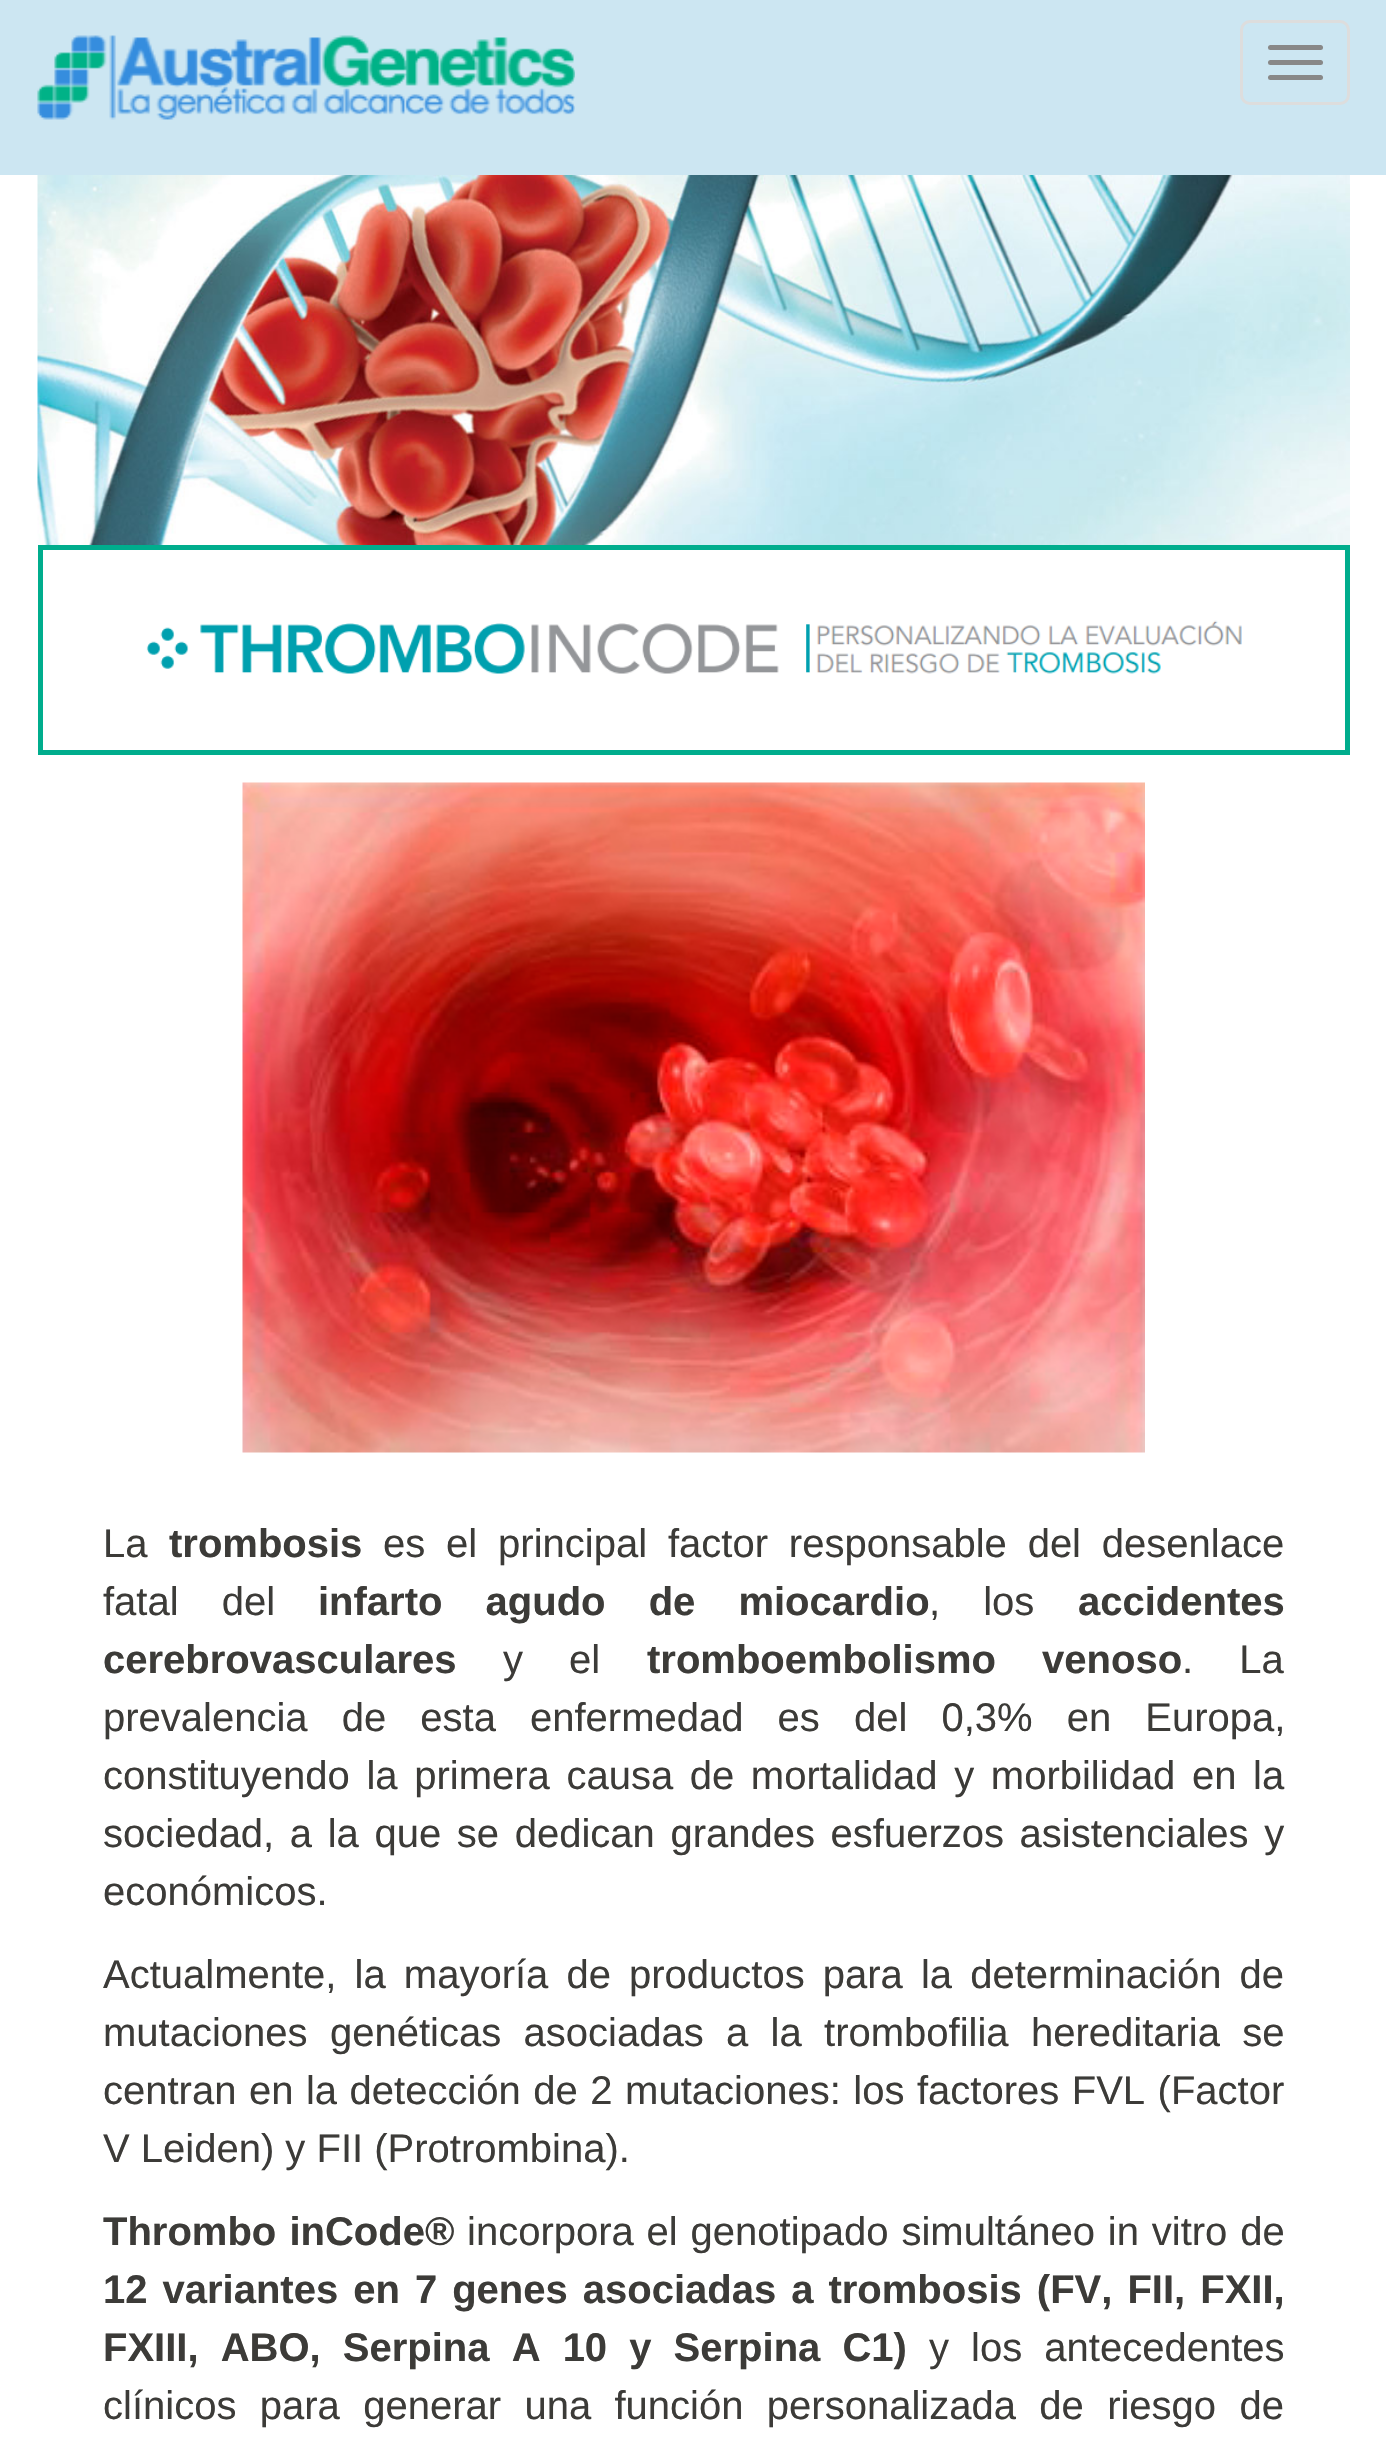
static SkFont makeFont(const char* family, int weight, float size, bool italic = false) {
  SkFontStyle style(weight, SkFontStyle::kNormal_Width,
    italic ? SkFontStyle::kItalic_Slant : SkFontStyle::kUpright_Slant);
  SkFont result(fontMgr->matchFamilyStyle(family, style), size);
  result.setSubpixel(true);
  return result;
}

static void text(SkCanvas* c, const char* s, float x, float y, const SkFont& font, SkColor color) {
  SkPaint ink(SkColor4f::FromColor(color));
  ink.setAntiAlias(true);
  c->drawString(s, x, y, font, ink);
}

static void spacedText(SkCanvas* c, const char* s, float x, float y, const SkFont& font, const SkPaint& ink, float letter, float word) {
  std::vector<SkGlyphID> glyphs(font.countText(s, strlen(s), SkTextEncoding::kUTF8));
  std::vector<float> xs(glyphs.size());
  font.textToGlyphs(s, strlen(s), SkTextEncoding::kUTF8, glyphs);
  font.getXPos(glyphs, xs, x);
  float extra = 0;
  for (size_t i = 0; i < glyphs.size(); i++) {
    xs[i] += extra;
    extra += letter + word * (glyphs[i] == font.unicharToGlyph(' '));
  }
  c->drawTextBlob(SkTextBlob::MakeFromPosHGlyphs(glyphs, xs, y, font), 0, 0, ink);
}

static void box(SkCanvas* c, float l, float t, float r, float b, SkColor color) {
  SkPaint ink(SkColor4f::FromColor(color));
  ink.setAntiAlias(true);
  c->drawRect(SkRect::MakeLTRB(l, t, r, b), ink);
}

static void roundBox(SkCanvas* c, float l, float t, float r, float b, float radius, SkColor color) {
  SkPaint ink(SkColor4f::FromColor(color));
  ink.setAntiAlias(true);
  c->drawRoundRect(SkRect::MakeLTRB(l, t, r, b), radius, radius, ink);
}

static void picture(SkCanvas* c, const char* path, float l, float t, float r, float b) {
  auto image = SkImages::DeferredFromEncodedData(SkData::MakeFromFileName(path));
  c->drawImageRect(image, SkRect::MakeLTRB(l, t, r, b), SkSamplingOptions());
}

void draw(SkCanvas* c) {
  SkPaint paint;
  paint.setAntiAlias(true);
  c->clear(0xffffffff);
  box(c, 0, 0, 1386, 175, 0xffcce6f2);
  picture(c, "img_01.png", 37, 35, 575, 120);
  paint.setStyle(SkPaint::kStroke_Style);
  paint.setStrokeWidth(3);
  paint.setColor(0xffdddddd);
  c->drawRoundRect(SkRect::MakeLTRB(1241.5f, 21.5f, 1348.5f, 103.5f), 8.5f, 8.5f, paint);
  roundBox(c, 1268, 45, 1323, 50, 2.5f, 0xff888888);
  roundBox(c, 1268, 60, 1323, 65, 2.5f, 0xff888888);
  roundBox(c, 1268, 75, 1323, 80, 2.5f, 0xff888888);
  picture(c, "img_02.png", 37, 175, 1350, 545);
  paint.setStrokeWidth(5);
  paint.setColor(0xff00ad8d);
  c->drawRect(SkRect::MakeLTRB(40.5f, 547.5f, 1347.5f, 752.5f), paint);
  picture(c, "img_03.png", 146, 620, 1242, 674);
  picture(c, "img_04.png", 242, 782, 1145, 1453);
  SkFont face1 = makeFont("Liberation Sans", 400, 40);
  text(c, "La", 103, 1557, face1, 0xff3c3b38);
  SkFont face2 = makeFont("Liberation Sans", 700, 40);
  text(c, "trombosis", 169, 1557, face2, 0xff3c3b38);
  paint.setStyle(SkPaint::kFill_Style);
  paint.setColor(0xff3c3b38);
  spacedText(c, "es el principal factor responsable del desenlace", 383, 1557, face1, paint, 0, 9.75f);
  spacedText(c, "fatal del", 103, 1615, face1, paint, 0, 32);
  spacedText(c, "infarto agudo de miocardio", 318, 1615, face2, paint, 0, 32);
  spacedText(c, ", los", 929, 1615, face1, paint, 0, 32);
  text(c, "accidentes", 1078, 1615, face2, 0xff3c3b38);
  text(c, "cerebrovasculares", 103, 1673, face2, 0xff3c3b38);
  spacedText(c, "y el", 503, 1673, face1, paint, 0, 35);
  spacedText(c, "tromboembolismo venoso", 647, 1673, face2, paint, 0, 35);
  spacedText(c, ". La", 1182, 1673, face1, paint, 0, 35);
  spacedText(c, "prevalencia de esta enfermedad es del 0,3% en Europa,", 103, 1731, face1, paint, 0, 23);
  spacedText(c, "constituyendo la primera causa de mortalidad y morbilidad en la", 103, 1789, face1, paint, 0, 5.5f);
  spacedText(c, "sociedad, a la que se dedican grandes esfuerzos asistenciales y", 103, 1847, face1, paint, 0, 4.5f);
  text(c, "económicos.", 103, 1905, face1, 0xff3c3b38);
  spacedText(c, "Actualmente, la mayoría de productos para la determinación de", 103, 1988, face1, paint, 0, 7);
  spacedText(c, "mutaciones genéticas asociadas a la trombofilia hereditaria se", 103, 2046, face1, paint, 0, 11.25f);
  spacedText(c, "centran en la detección de 2 mutaciones: los factores FVL (Factor", 103, 2104, face1, paint, 0, 1.4f);
  text(c, "V Leiden) y FII (Protrombina).", 103, 2162, face1, 0xff3c3b38);
  spacedText(c, "Thrombo inCode®", 103, 2245, face2, paint, 0, 2);
  spacedText(c, "incorpora el genotipado simultáneo in vitro de", 467, 2245, face1, paint, 0, 1.75f);
  spacedText(c, "12 variantes en 7 genes asociadas a trombosis (FV, FII, FXII,", 103, 2303, face2, paint, 0, 3.9f);
  spacedText(c, "FXIII, ABO, Serpina A 10 y Serpina C1)", 103, 2361, face2, paint, 0, 11);
  spacedText(c, "y los antecedentes", 929, 2361, face1, paint, 0, 11);
  spacedText(c, "clínicos para generar una función personalizada de riesgo de", 103, 2419, face1, paint, 0, 12.25f);
}
